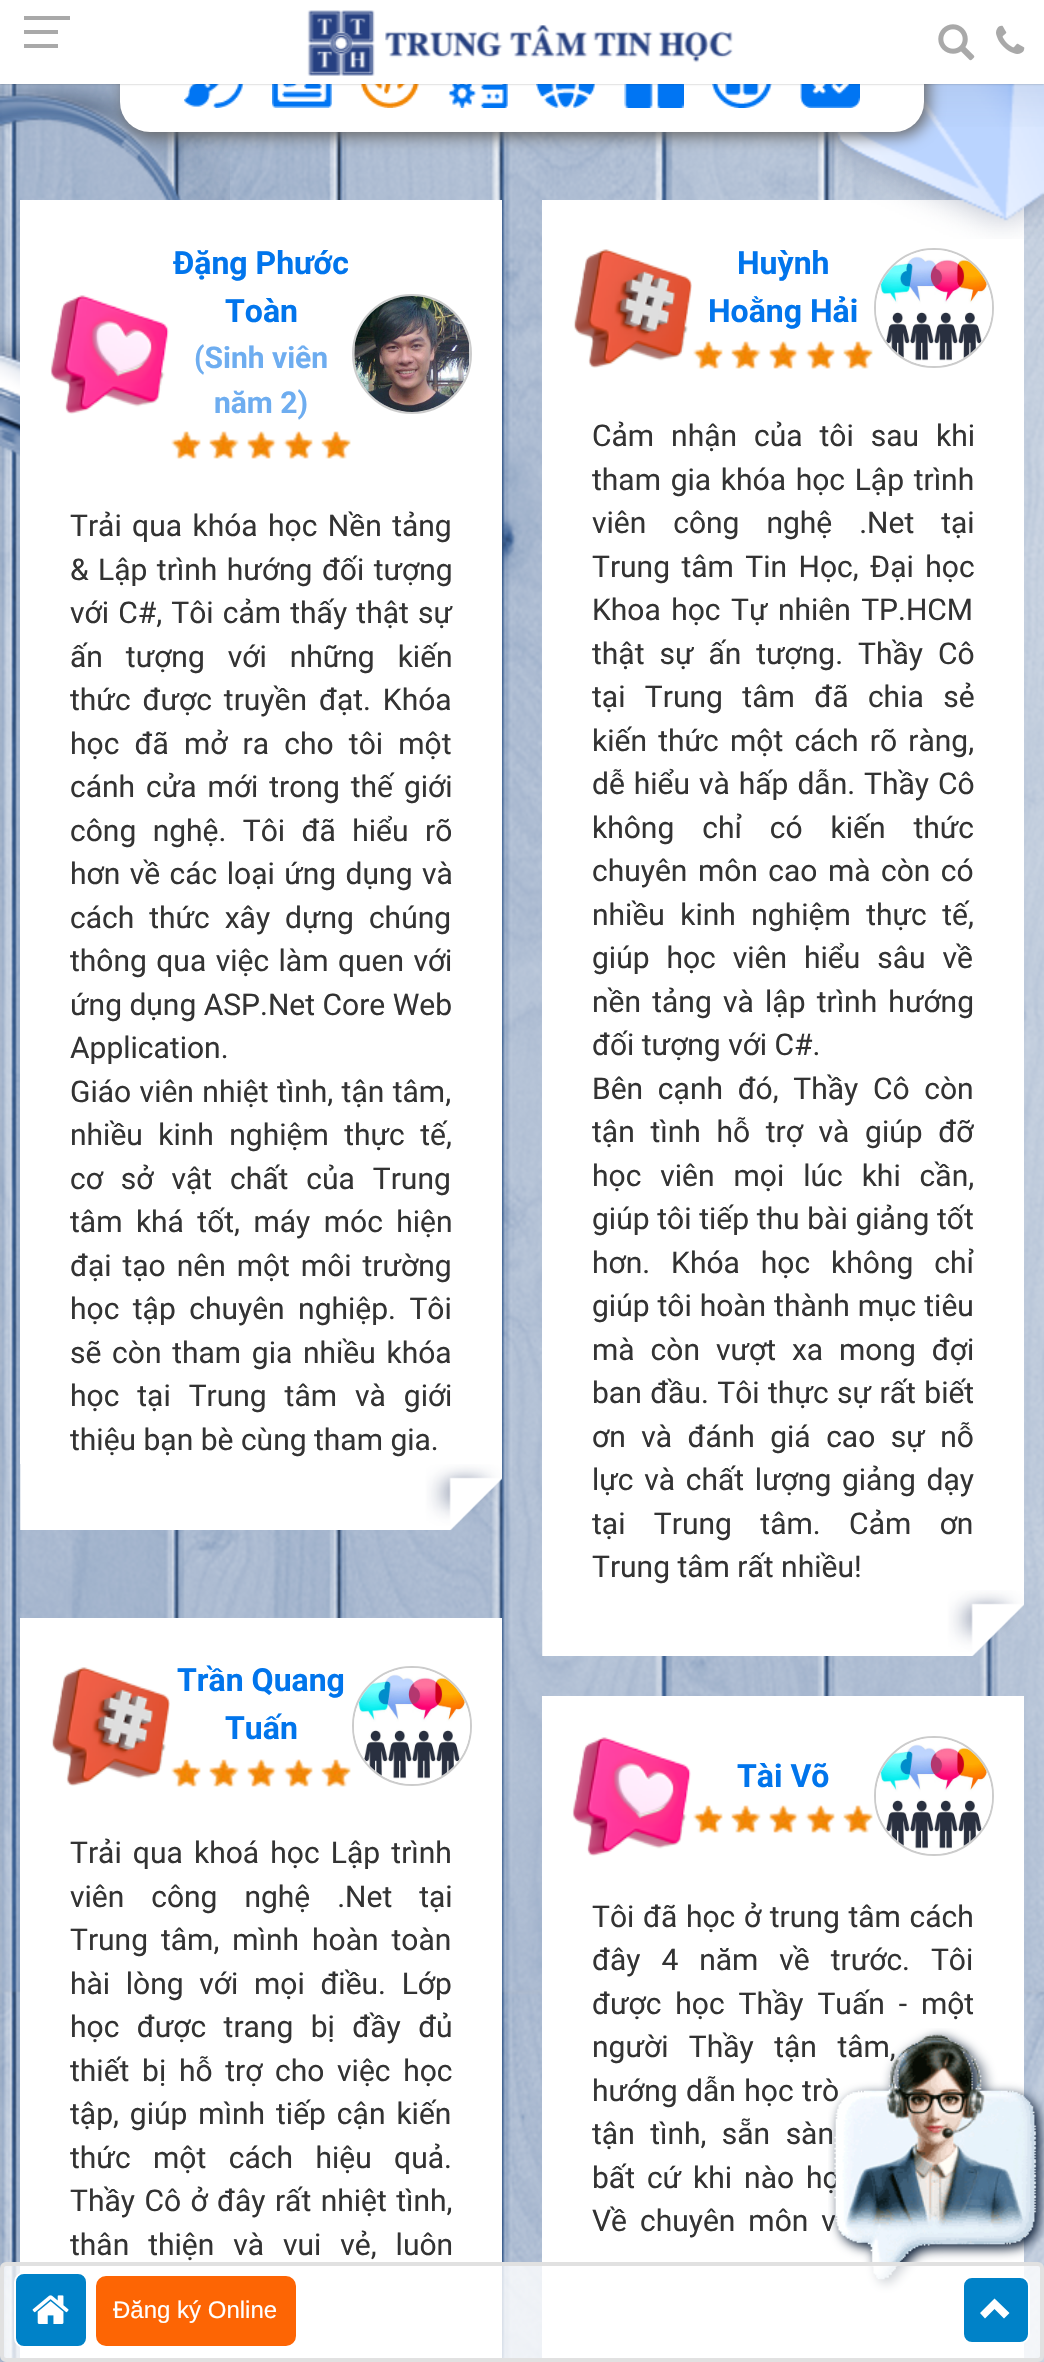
static SkFont makeFont(const char* family, int weight, float size, bool italic = false) {
  SkFontStyle style(weight, SkFontStyle::kNormal_Width,
    italic ? SkFontStyle::kItalic_Slant : SkFontStyle::kUpright_Slant);
  SkFont result(fontMgr->matchFamilyStyle(family, style), size);
  result.setSubpixel(true);
  return result;
}

static void text(SkCanvas* c, const char* s, float x, float y, const SkFont& font, SkColor color) {
  SkPaint ink(SkColor4f::FromColor(color));
  ink.setAntiAlias(true);
  c->drawString(s, x, y, font, ink);
}

static void spacedText(SkCanvas* c, const char* s, float x, float y, const SkFont& font, const SkPaint& ink, float letter, float word) {
  std::vector<SkGlyphID> glyphs(font.countText(s, strlen(s), SkTextEncoding::kUTF8));
  std::vector<float> xs(glyphs.size());
  font.textToGlyphs(s, strlen(s), SkTextEncoding::kUTF8, glyphs);
  font.getXPos(glyphs, xs, x);
  float extra = 0;
  for (size_t i = 0; i < glyphs.size(); i++) {
    xs[i] += extra;
    extra += letter + word * (glyphs[i] == font.unicharToGlyph(' '));
  }
  c->drawTextBlob(SkTextBlob::MakeFromPosHGlyphs(glyphs, xs, y, font), 0, 0, ink);
}

static void box(SkCanvas* c, float l, float t, float r, float b, SkColor color) {
  SkPaint ink(SkColor4f::FromColor(color));
  ink.setAntiAlias(true);
  c->drawRect(SkRect::MakeLTRB(l, t, r, b), ink);
}

static void roundBox(SkCanvas* c, float l, float t, float r, float b, float radius, SkColor color) {
  SkPaint ink(SkColor4f::FromColor(color));
  ink.setAntiAlias(true);
  c->drawRoundRect(SkRect::MakeLTRB(l, t, r, b), radius, radius, ink);
}

static void picture(SkCanvas* c, const char* path, float l, float t, float r, float b) {
  auto image = SkImages::DeferredFromEncodedData(SkData::MakeFromFileName(path));
  c->drawImageRect(image, SkRect::MakeLTRB(l, t, r, b), SkSamplingOptions());
}

void draw(SkCanvas* c) {
  SkPaint paint;
  paint.setAntiAlias(true);
  c->clear(0xffffffff);
  picture(c, "img_04.png", 0, 84, 1044, 2362);
  picture(c, "img_14.png", 0, 84, 230, 457);
  box(c, 542, 200, 1024, 1590, 0xffffffff);
  picture(c, "img_15.png", 813, 84, 1044, 239);
  picture(c, "img_05.png", 0, 84, 1044, 127);
  paint.setColor(0xff666666);
  paint.setMaskFilter(SkMaskFilter::MakeBlur(kNormal_SkBlurStyle, 8));
  c->drawRoundRect(SkRect::MakeLTRB(124, 28, 928, 136), 30, 30, paint);
  paint.setMaskFilter(nullptr);
  roundBox(c, 120, 24, 924, 132, 30, 0xffffffff);
  picture(c, "img_06.png", 184, 84, 244, 108);
  picture(c, "img_07.png", 272, 84, 332, 108);
  picture(c, "img_08.png", 360, 84, 419, 108);
  picture(c, "img_09.png", 448, 84, 508, 108);
  picture(c, "img_10.png", 536, 84, 596, 108);
  picture(c, "img_11.png", 624, 84, 684, 108);
  picture(c, "img_12.png", 712, 84, 772, 108);
  picture(c, "img_13.png", 800, 84, 860, 108);
  paint.setColor(0x4d000000);
  paint.setMaskFilter(SkMaskFilter::MakeBlur(kNormal_SkBlurStyle, 1));
  c->drawRect(SkRect::MakeLTRB(0, 0, 1044, 84), paint);
  paint.setMaskFilter(nullptr);
  box(c, 0, 0, 1044, 84, 0xffffffff);
  box(c, 24, 30, 58, 34, 0xffa9a9a9);
  box(c, 24, 16, 70, 20, 0xffa9a9a9);
  box(c, 24, 44, 58, 48, 0xffa9a9a9);
  picture(c, "img_01.png", 307, 10, 733, 76);
  picture(c, "img_02.png", 938, 24, 975, 61);
  picture(c, "img_03.png", 996, 25, 1025, 54);
  box(c, 20, 200, 502, 1464, 0xffffffff);
  picture(c, "img_16.png", 50, 295, 169, 414);
  SkFont face1 = makeFont("Roboto", 700, 32);
  text(c, "Đặng Phước", 173, 274, face1, 0xff0175ec);
  text(c, "Toàn", 225, 322, face1, 0xff0175ec);
  SkFont face2 = makeFont("Roboto", 700, 30);
  text(c, "(Sinh viên", 194, 368, face2, 0xff6eadf0);
  text(c, "năm 2)", 214, 413, face2, 0xff6eadf0);
  picture(c, "img_17.png", 171, 431, 351, 460);
  paint.setStyle(SkPaint::kStroke_Style);
  paint.setStrokeWidth(2);
  paint.setColor(0xffcccccc);
  c->drawCircle(412, 354, 59, paint);
  picture(c, "img_18.png", 354, 296, 470, 412);
  SkFont face3 = makeFont("Roboto", 400, 30);
  paint.setStyle(SkPaint::kFill_Style);
  paint.setColor(0xff333333);
  spacedText(c, "Trải qua khóa học Nền tảng", 70, 536, face3, paint, 0, 3);
  spacedText(c, "& Lập trình hướng đối tượng", 70, 580, face3, paint, 0, 2);
  spacedText(c, "với C#, Tôi cảm thấy thật sự", 70, 623, face3, paint, 0, 1.75f);
  spacedText(c, "ấn tượng với những kiến", 70, 667, face3, paint, 0, 15.5f);
  spacedText(c, "thức được truyền đạt. Khóa", 70, 710, face3, paint, 0, 4.5f);
  spacedText(c, "học đã mở ra cho tôi một", 70, 754, face3, paint, 0, 7.75f);
  spacedText(c, "cánh cửa mới trong thế giới", 70, 797, face3, paint, 0, 3.5f);
  spacedText(c, "công nghệ. Tôi đã hiểu rõ", 70, 841, face3, paint, 0, 9);
  spacedText(c, "hơn về các loại ứng dụng và", 70, 884, face3, paint, 0, 2);
  spacedText(c, "cách thức xây dựng chúng", 70, 928, face3, paint, 0, 7.5f);
  spacedText(c, "thông qua việc làm quen với", 70, 971, face3, paint, 0, 2);
  text(c, "ứng dụng ASP.Net Core Web", 70, 1015, face3, 0xff333333);
  text(c, "Application.", 70, 1058, face3, 0xff333333);
  spacedText(c, "Giáo viên nhiệt tình, tận tâm,", 70, 1102, face3, paint, 0, 1);
  spacedText(c, "nhiều kinh nghiệm thực tế,", 70, 1145, face3, paint, 0, 8);
  spacedText(c, "cơ sở vật chất của Trung", 70, 1189, face3, paint, 0, 10.5f);
  spacedText(c, "tâm khá tốt, máy móc hiện", 70, 1232, face3, paint, 0, 6);
  spacedText(c, "đại tạo nên một môi trường", 70, 1276, face3, paint, 0, 3.5f);
  spacedText(c, "học tập chuyên nghiệp. Tôi", 70, 1319, face3, paint, 0, 6);
  spacedText(c, "sẽ còn tham gia nhiều khóa", 70, 1363, face3, paint, 0, 3.25f);
  spacedText(c, "học tại Trung tâm và giới", 70, 1406, face3, paint, 0, 10.5f);
  text(c, "thiệu bạn bè cùng tham gia.", 70, 1450, face3, 0xff333333);
  picture(c, "img_19.png", 20, 1464, 502, 1530);
  picture(c, "img_20.png", 573, 249, 692, 368);
  text(c, "Huỳnh", 737, 274, face1, 0xff0175ec);
  text(c, "Hoằng Hải", 708, 322, face1, 0xff0175ec);
  picture(c, "img_17.png", 693, 341, 873, 370);
  paint.setStyle(SkPaint::kStroke_Style);
  paint.setColor(0xffcccccc);
  c->drawCircle(934, 308, 59, paint);
  picture(c, "img_21.png", 876, 250, 992, 366);
  paint.setStyle(SkPaint::kFill_Style);
  paint.setColor(0xff333333);
  spacedText(c, "Cảm nhận của tôi sau khi", 592, 446, face3, paint, 0, 9.5f);
  spacedText(c, "tham gia khóa học Lập trình", 592, 490, face3, paint, 0, 2.25f);
  spacedText(c, "viên công nghệ .Net tại", 592, 533, face3, paint, 0, 19.5f);
  spacedText(c, "Trung tâm Tin Học, Đại học", 592, 577, face3, paint, 0, 4);
  spacedText(c, "Khoa học Tự nhiên TP.HCM", 592, 620, face3, paint, 0, 3);
  spacedText(c, "thật sự ấn tượng. Thầy Cô", 592, 664, face3, paint, 0, 7.5f);
  spacedText(c, "tại Trung tâm đã chia sẻ", 592, 707, face3, paint, 0, 12);
  spacedText(c, "kiến thức một cách rõ ràng,", 592, 751, face3, paint, 0, 3.75f);
  spacedText(c, "dễ hiểu và hấp dẫn. Thầy Cô", 592, 794, face3, paint, 0, 1.5f);
  spacedText(c, "không chỉ có kiến thức", 592, 838, face3, paint, 0, 20.5f);
  spacedText(c, "chuyên môn cao mà còn có", 592, 881, face3, paint, 0, 3);
  spacedText(c, "nhiều kinh nghiệm thực tế,", 592, 925, face3, paint, 0, 8);
  spacedText(c, "giúp học viên hiểu sâu về", 592, 968, face3, paint, 0, 9.5f);
  spacedText(c, "nền tảng và lập trình hướng", 592, 1012, face3, paint, 0, 3.75f);
  text(c, "đối tượng với C#.", 592, 1055, face3, 0xff333333);
  spacedText(c, "Bên cạnh đó, Thầy Cô còn", 592, 1099, face3, paint, 0, 7.25f);
  spacedText(c, "tận tình hỗ trợ và giúp đỡ", 592, 1142, face3, paint, 0, 8.25f);
  spacedText(c, "học viên mọi lúc khi cần,", 592, 1186, face3, paint, 0, 11.5f);
  spacedText(c, "giúp tôi tiếp thu bài giảng tốt", 592, 1229, face3, paint, 0, 0.25f);
  spacedText(c, "hơn. Khóa học không chỉ", 592, 1273, face3, paint, 0, 13.5f);
  spacedText(c, "giúp tôi hoàn thành mục tiêu", 592, 1316, face3, paint, 0, 0.5f);
  spacedText(c, "mà còn vượt xa mong đợi", 592, 1360, face3, paint, 0, 8.5f);
  spacedText(c, "ban đầu. Tôi thực sự rất biết", 592, 1403, face3, paint, 0, 1);
  spacedText(c, "ơn và đánh giá cao sự nỗ", 592, 1447, face3, paint, 0, 8);
  spacedText(c, "lực và chất lượng giảng dạy", 592, 1490, face3, paint, 0, 3.25f);
  spacedText(c, "tại Trung tâm. Cảm ơn", 592, 1534, face3, paint, 0, 21);
  text(c, "Trung tâm rất nhiều!", 592, 1577, face3, 0xff333333);
  picture(c, "img_22.png", 542, 1590, 1024, 1656);
  box(c, 20, 1618, 502, 2358, 0xffffffff);
  picture(c, "img_20.png", 51, 1667, 170, 1786);
  text(c, "Trần Quang", 177, 1691, face1, 0xff0175ec);
  text(c, "Tuấn", 225, 1739, face1, 0xff0175ec);
  picture(c, "img_17.png", 171, 1759, 351, 1788);
  paint.setStyle(SkPaint::kStroke_Style);
  paint.setColor(0xffcccccc);
  c->drawCircle(412, 1726, 59, paint);
  picture(c, "img_23.png", 354, 1668, 470, 1784);
  paint.setStyle(SkPaint::kFill_Style);
  paint.setColor(0xff333333);
  spacedText(c, "Trải qua khoá học Lập trình", 70, 1863, face3, paint, 0, 3.75f);
  spacedText(c, "viên công nghệ .Net tại", 70, 1907, face3, paint, 0, 19.5f);
  spacedText(c, "Trung tâm, mình hoàn toàn", 70, 1950, face3, paint, 0, 5.5f);
  spacedText(c, "hài lòng với mọi điều. Lớp", 70, 1994, face3, paint, 0, 8.25f);
  spacedText(c, "học được trang bị đầy đủ", 70, 2037, face3, paint, 0, 10);
  spacedText(c, "thiết bị hỗ trợ cho việc học", 70, 2081, face3, paint, 0, 5.25f);
  spacedText(c, "tập, giúp mình tiếp cận kiến", 70, 2124, face3, paint, 0, 3.5f);
  spacedText(c, "thức một cách hiệu quả.", 70, 2168, face3, paint, 0, 15);
  spacedText(c, "Thầy Cô ở đây rất nhiệt tình,", 70, 2211, face3, paint, 0, 2);
  spacedText(c, "thân thiện và vui vẻ, luôn", 70, 2255, face3, paint, 0, 11.5f);
  box(c, 542, 1696, 1024, 2358, 0xffffffff);
  picture(c, "img_16.png", 572, 1737, 691, 1856);
  text(c, "Tài Võ", 737, 1787, face1, 0xff0175ec);
  picture(c, "img_17.png", 693, 1805, 873, 1834);
  paint.setStyle(SkPaint::kStroke_Style);
  paint.setColor(0xffcccccc);
  c->drawCircle(934, 1796, 59, paint);
  picture(c, "img_24.png", 876, 1738, 992, 1854);
  paint.setStyle(SkPaint::kFill_Style);
  paint.setColor(0xff333333);
  spacedText(c, "Tôi đã học ở trung tâm cách", 592, 1927, face3, paint, 0, 1.25f);
  spacedText(c, "đây 4 năm về trước. Tôi", 592, 1970, face3, paint, 0, 13.5f);
  spacedText(c, "được học Thầy Tuấn - một", 592, 2014, face3, paint, 0, 6.5f);
  spacedText(c, "người Thầy tận tâm,", 592, 2057, face3, paint, 0, 13);
  spacedText(c, "hướng dẫn học trò", 592, 2101, face3, paint, 0, 1);
  spacedText(c, "tận tình, sẵn sàn", 592, 2144, face3, paint, 0, 8);
  spacedText(c, "bất cứ khi nào họ", 592, 2188, face3, paint, 0, 4.5f);
  spacedText(c, "Về chuyên môn v", 592, 2231, face3, paint, 0, 5.5f);
  picture(c, "img_25.png", 828, 2028, 1044, 2293);
  paint.setColor(0xccffffff);
  c->drawRoundRect(SkRect::MakeLTRB(2, 2264, 1042, 2360), 4, 4, paint);
  paint.setStyle(SkPaint::kStroke_Style);
  paint.setStrokeWidth(4);
  paint.setColor(0xffe1e1e1);
  c->drawRoundRect(SkRect::MakeLTRB(2, 2264, 1042, 2360), 4, 4, paint);
  paint.setStyle(SkPaint::kFill_Style);
  paint.setColor(0xff0082c8);
  c->drawRoundRect(SkRect::MakeLTRB(15, 2273, 87, 2347), 9, 9, paint);
  paint.setStyle(SkPaint::kStroke_Style);
  paint.setStrokeWidth(2);
  paint.setColor(0xffffffff);
  c->drawRoundRect(SkRect::MakeLTRB(15, 2273, 87, 2347), 9, 9, paint);
  picture(c, "img_26.png", 32, 2295, 69, 2324);
  paint.setStyle(SkPaint::kFill_Style);
  paint.setColor(0xfffd6504);
  c->drawRoundRect(SkRect::MakeLTRB(97, 2277, 295, 2345), 9, 9, paint);
  paint.setStyle(SkPaint::kStroke_Style);
  c->drawRoundRect(SkRect::MakeLTRB(97, 2277, 295, 2345), 9, 9, paint);
  SkFont face4 = makeFont("Liberation Sans", 400, 24);
  text(c, "Đăng ký Online", 113, 2318, face4, 0xffffffff);
  paint.setStyle(SkPaint::kFill_Style);
  paint.setColor(0xff0082c8);
  c->drawRoundRect(SkRect::MakeLTRB(963, 2277, 1029, 2343), 9, 9, paint);
  paint.setStyle(SkPaint::kStroke_Style);
  paint.setColor(0xffffffff);
  c->drawRoundRect(SkRect::MakeLTRB(963, 2277, 1029, 2343), 9, 9, paint);
  paint.setStyle(SkPaint::kFill_Style);
  c->drawPath(SkPathBuilder().moveTo(1009.5f, 2313).lineTo(1004, 2318.5f).lineTo(994.5f, 2309).lineTo(985, 2318.5f).lineTo(980, 2313).lineTo(994.5f, 2298.5f).close().detach(), paint);
}
